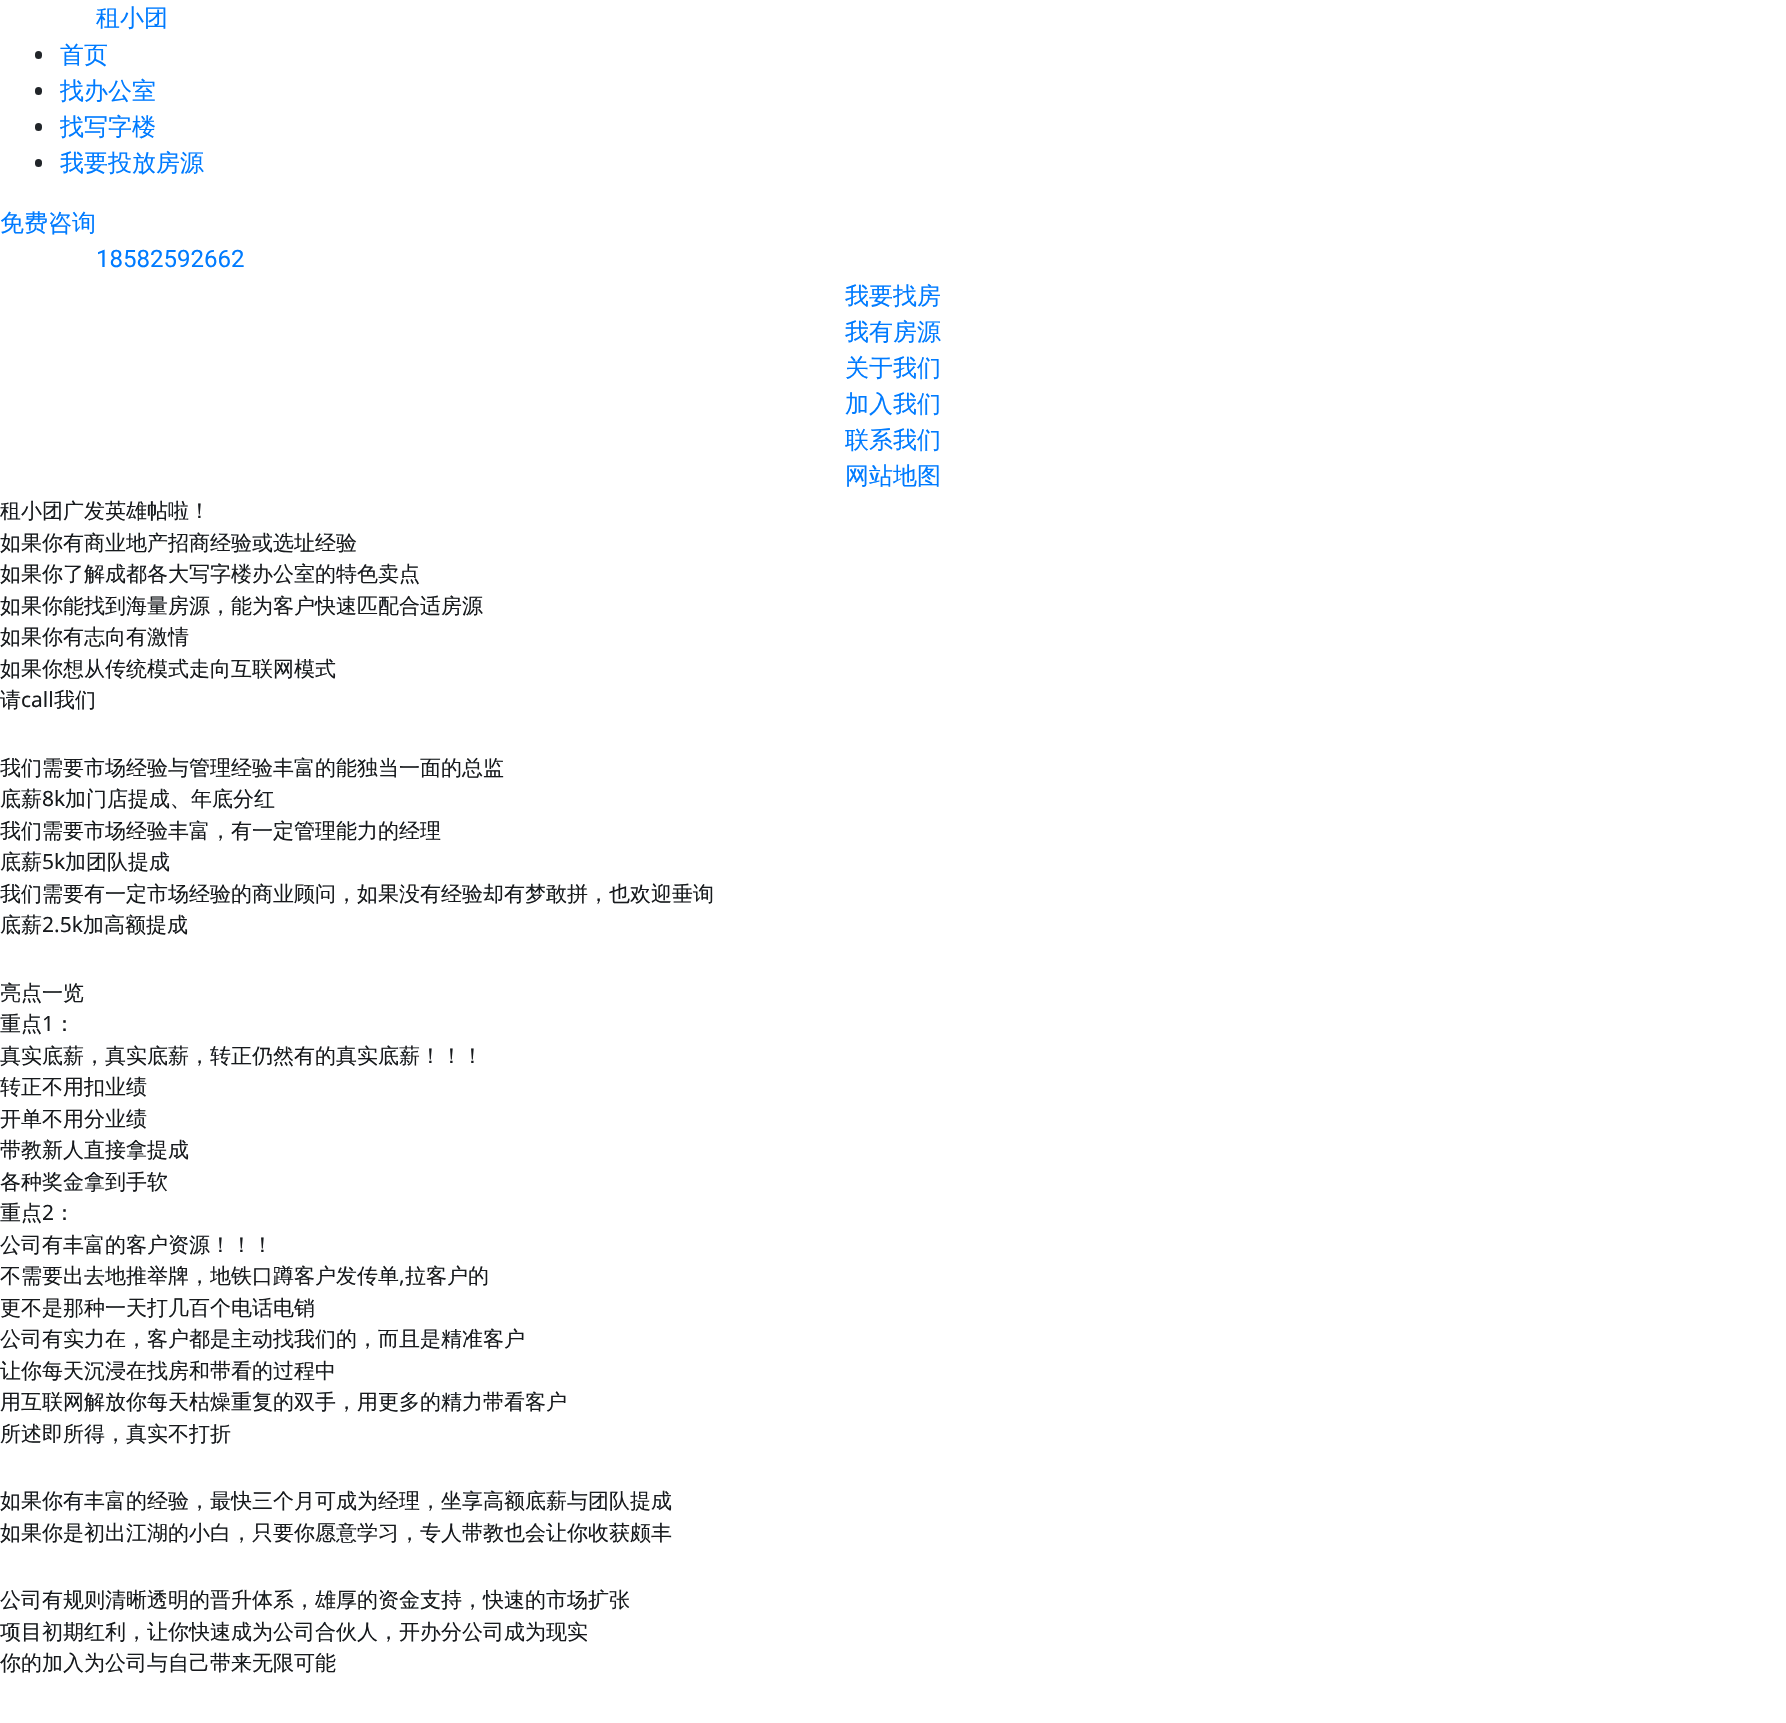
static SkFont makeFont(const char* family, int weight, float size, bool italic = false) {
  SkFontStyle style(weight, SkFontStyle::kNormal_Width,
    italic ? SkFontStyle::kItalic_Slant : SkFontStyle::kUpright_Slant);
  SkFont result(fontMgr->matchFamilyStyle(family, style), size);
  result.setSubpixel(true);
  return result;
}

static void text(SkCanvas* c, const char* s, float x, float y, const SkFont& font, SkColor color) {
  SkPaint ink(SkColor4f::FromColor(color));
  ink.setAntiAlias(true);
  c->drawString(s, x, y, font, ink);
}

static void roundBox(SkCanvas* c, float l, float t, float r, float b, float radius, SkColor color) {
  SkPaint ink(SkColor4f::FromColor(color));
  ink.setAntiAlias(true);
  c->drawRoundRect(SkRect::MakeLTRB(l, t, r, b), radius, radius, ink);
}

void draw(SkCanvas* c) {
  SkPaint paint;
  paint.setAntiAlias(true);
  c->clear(0xffffffff);
  SkFont face1 = makeFont("WenQuanYi Zen Hei", 500, 24);
  text(c, "租小团", 96, 26, face1, 0xff007bff);
  roundBox(c, 35, 51, 42, 59, 3.5f, 0xff212529);
  text(c, "首页", 60, 63, face1, 0xff007bff);
  roundBox(c, 35, 87, 42, 95, 3.5f, 0xff212529);
  text(c, "找办公室", 60, 99, face1, 0xff007bff);
  roundBox(c, 35, 123, 42, 131, 3.5f, 0xff212529);
  text(c, "找写字楼", 60, 135, face1, 0xff007bff);
  roundBox(c, 35, 159, 42, 167, 3.5f, 0xff212529);
  text(c, "我要投放房源", 60, 171, face1, 0xff007bff);
  text(c, "免费咨询", 0, 231, face1, 0xff007bff);
  SkFont face2 = makeFont("Roboto", 400, 24);
  text(c, "18582592662", 96, 267, face2, 0xff007bff);
  text(c, "我要找房", 845, 304, face1, 0xff007bff);
  text(c, "我有房源", 845, 340, face1, 0xff007bff);
  text(c, "关于我们", 845, 376, face1, 0xff007bff);
  text(c, "加入我们", 845, 412, face1, 0xff007bff);
  text(c, "联系我们", 845, 448, face1, 0xff007bff);
  text(c, "网站地图", 845, 484, face1, 0xff007bff);
  SkFont face3 = makeFont("WenQuanYi Zen Hei", 500, 21);
  text(c, "租小团广发英雄帖啦！", 0, 518, face3, 0xff171a1d);
  text(c, "如果你有商业地产招商经验或选址经验", 0, 550, face3, 0xff171a1d);
  text(c, "如果你了解成都各大写字楼办公室的特色卖点", 0, 581, face3, 0xff171a1d);
  text(c, "如果你能找到海量房源，能为客户快速匹配合适房源", 0, 613, face3, 0xff171a1d);
  text(c, "如果你有志向有激情", 0, 644, face3, 0xff171a1d);
  text(c, "如果你想从传统模式走向互联网模式", 0, 676, face3, 0xff171a1d);
  text(c, "请", 0, 707, face3, 0xff171a1d);
  SkFont face4 = makeFont("Noto Sans", 400, 21);
  text(c, "call", 21, 707, face4, 0xff171a1d);
  text(c, "我们", 54, 707, face3, 0xff171a1d);
  text(c, "我们需要市场经验与管理经验丰富的能独当一面的总监", 0, 775, face3, 0xff171a1d);
  text(c, "底薪", 0, 806, face3, 0xff171a1d);
  text(c, "8k", 42, 806, face4, 0xff171a1d);
  text(c, "加门店提成、年底分红", 65, 806, face3, 0xff171a1d);
  text(c, "我们需要市场经验丰富，有一定管理能力的经理", 0, 838, face3, 0xff171a1d);
  text(c, "底薪", 0, 869, face3, 0xff171a1d);
  text(c, "5k", 42, 869, face4, 0xff171a1d);
  text(c, "加团队提成", 65, 869, face3, 0xff171a1d);
  text(c, "我们需要有一定市场经验的商业顾问，如果没有经验却有梦敢拼，也欢迎垂询", 0, 901, face3, 0xff171a1d);
  text(c, "底薪", 0, 932, face3, 0xff171a1d);
  text(c, "2.5k", 42, 932, face4, 0xff171a1d);
  text(c, "加高额提成", 83, 932, face3, 0xff171a1d);
  text(c, "亮点一览", 0, 1000, face3, 0xff171a1d);
  text(c, "重点", 0, 1031, face3, 0xff171a1d);
  text(c, "1", 42, 1031, face4, 0xff171a1d);
  text(c, "：", 54, 1031, face3, 0xff171a1d);
  text(c, "真实底薪，真实底薪，转正仍然有的真实底薪！！！", 0, 1063, face3, 0xff171a1d);
  text(c, "转正不用扣业绩", 0, 1094, face3, 0xff171a1d);
  text(c, "开单不用分业绩", 0, 1126, face3, 0xff171a1d);
  text(c, "带教新人直接拿提成", 0, 1157, face3, 0xff171a1d);
  text(c, "各种奖金拿到手软", 0, 1189, face3, 0xff171a1d);
  text(c, "重点", 0, 1220, face3, 0xff171a1d);
  text(c, "2", 42, 1220, face4, 0xff171a1d);
  text(c, "：", 54, 1220, face3, 0xff171a1d);
  text(c, "公司有丰富的客户资源！！！", 0, 1252, face3, 0xff171a1d);
  text(c, "不需要出去地推举牌，地铁口蹲客户发传单", 0, 1283, face3, 0xff171a1d);
  text(c, ",", 399, 1283, face4, 0xff171a1d);
  text(c, "拉客户的", 405, 1283, face3, 0xff171a1d);
  text(c, "更不是那种一天打几百个电话电销", 0, 1315, face3, 0xff171a1d);
  text(c, "公司有实力在，客户都是主动找我们的，而且是精准客户", 0, 1346, face3, 0xff171a1d);
  text(c, "让你每天沉浸在找房和带看的过程中", 0, 1378, face3, 0xff171a1d);
  text(c, "用互联网解放你每天枯燥重复的双手，用更多的精力带看客户", 0, 1409, face3, 0xff171a1d);
  text(c, "所述即所得，真实不打折", 0, 1441, face3, 0xff171a1d);
  text(c, "如果你有丰富的经验，最快三个月可成为经理，坐享高额底薪与团队提成", 0, 1508, face3, 0xff171a1d);
  text(c, "如果你是初出江湖的小白，只要你愿意学习，专人带教也会让你收获颇丰", 0, 1540, face3, 0xff171a1d);
  text(c, "公司有规则清晰透明的晋升体系，雄厚的资金支持，快速的市场扩张", 0, 1607, face3, 0xff171a1d);
  text(c, "项目初期红利，让你快速成为公司合伙人，开办分公司成为现实", 0, 1639, face3, 0xff171a1d);
  text(c, "你的加入为公司与自己带来无限可能", 0, 1670, face3, 0xff171a1d);
}
